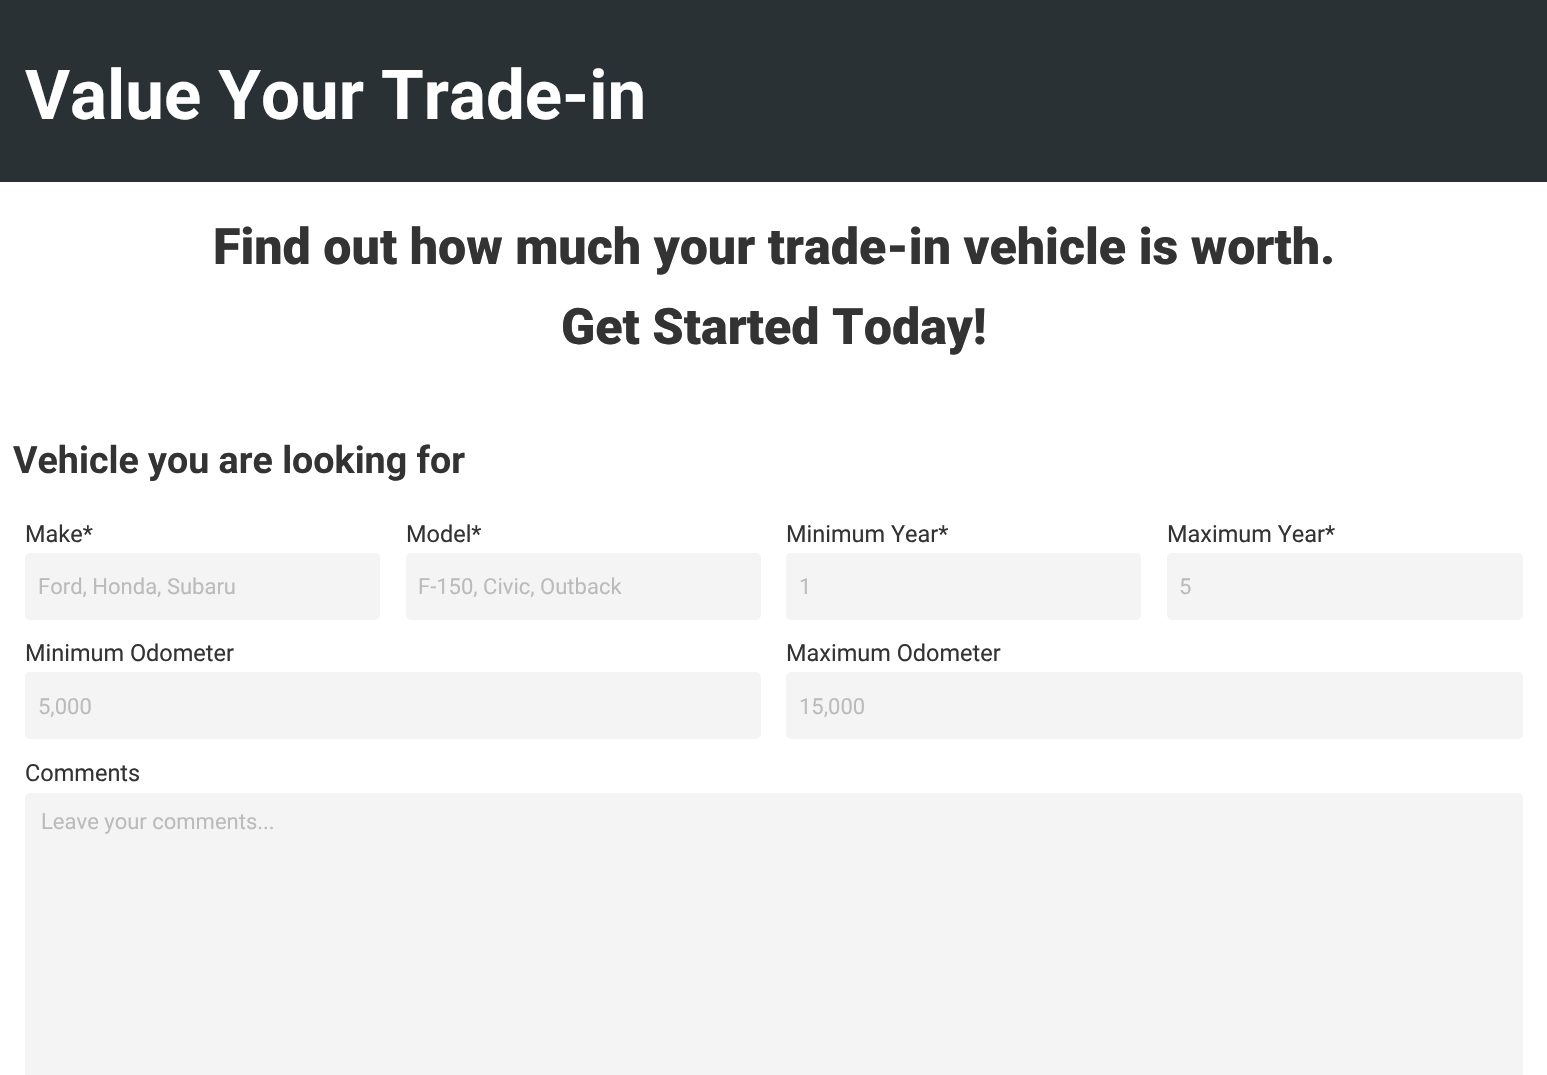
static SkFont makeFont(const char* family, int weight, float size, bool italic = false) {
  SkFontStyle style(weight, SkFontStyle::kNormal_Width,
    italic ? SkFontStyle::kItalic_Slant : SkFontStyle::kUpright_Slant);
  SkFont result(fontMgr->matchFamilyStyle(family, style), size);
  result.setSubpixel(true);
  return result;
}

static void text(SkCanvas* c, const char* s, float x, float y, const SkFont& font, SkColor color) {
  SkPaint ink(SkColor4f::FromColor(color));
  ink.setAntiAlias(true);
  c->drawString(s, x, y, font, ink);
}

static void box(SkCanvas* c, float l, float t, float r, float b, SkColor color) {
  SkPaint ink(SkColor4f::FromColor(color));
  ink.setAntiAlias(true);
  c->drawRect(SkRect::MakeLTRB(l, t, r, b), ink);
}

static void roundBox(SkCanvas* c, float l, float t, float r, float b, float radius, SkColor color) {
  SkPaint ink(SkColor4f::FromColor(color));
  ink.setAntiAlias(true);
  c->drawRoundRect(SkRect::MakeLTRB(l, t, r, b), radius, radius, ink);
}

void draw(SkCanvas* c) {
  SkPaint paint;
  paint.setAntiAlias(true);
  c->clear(0xffffffff);
  box(c, 0, 0, 1547, 182, 0xff2a3135);
  SkFont face1 = makeFont("Roboto", 700, 69);
  text(c, "Value Your Trade-in", 25, 119, face1, 0xffffffff);
  SkFont face2 = makeFont("Roboto", 900, 50.2f);
  text(c, "Find out how much your trade-in vehicle is worth.", 213, 264, face2, 0xff333333);
  text(c, "Get Started Today!", 561, 344, face2, 0xff333333);
  SkFont face3 = makeFont("Roboto", 700, 37.6f);
  text(c, "Vehicle you are looking for", 13, 473, face3, 0xff333333);
  SkFont face4 = makeFont("Roboto", 400, 23.5f);
  text(c, "Make*", 25, 542, face4, 0xff333333);
  roundBox(c, 25, 553, 380, 620, 5, 0xfff4f4f4);
  SkFont face5 = makeFont("Roboto", 400, 22);
  text(c, "Ford, Honda, Subaru", 38, 594, face5, 0xffbbbbbb);
  text(c, "Model*", 406, 542, face4, 0xff333333);
  roundBox(c, 406, 553, 761, 620, 5, 0xfff4f4f4);
  text(c, "F-150, Civic, Outback", 418, 594, face5, 0xffbbbbbb);
  text(c, "Minimum Year*", 786, 542, face4, 0xff333333);
  roundBox(c, 786, 553, 1141, 620, 5, 0xfff4f4f4);
  text(c, "1", 799, 594, face5, 0xffbbbbbb);
  text(c, "Maximum Year*", 1167, 542, face4, 0xff333333);
  roundBox(c, 1167, 553, 1523, 620, 5, 0xfff4f4f4);
  text(c, "5", 1179, 594, face5, 0xffbbbbbb);
  text(c, "Minimum Odometer", 25, 661, face4, 0xff333333);
  roundBox(c, 25, 672, 761, 739, 5, 0xfff4f4f4);
  text(c, "5,000", 38, 714, face5, 0xffbbbbbb);
  text(c, "Maximum Odometer", 786, 661, face4, 0xff333333);
  roundBox(c, 786, 672, 1523, 739, 5, 0xfff4f4f4);
  text(c, "15,000", 799, 714, face5, 0xffbbbbbb);
  text(c, "Comments", 25, 781, face4, 0xff333333);
  roundBox(c, 25, 793, 1523, 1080, 5, 0xfff4f4f4);
  text(c, "Leave your comments...", 41, 829, face5, 0xffbbbbbb);
}
